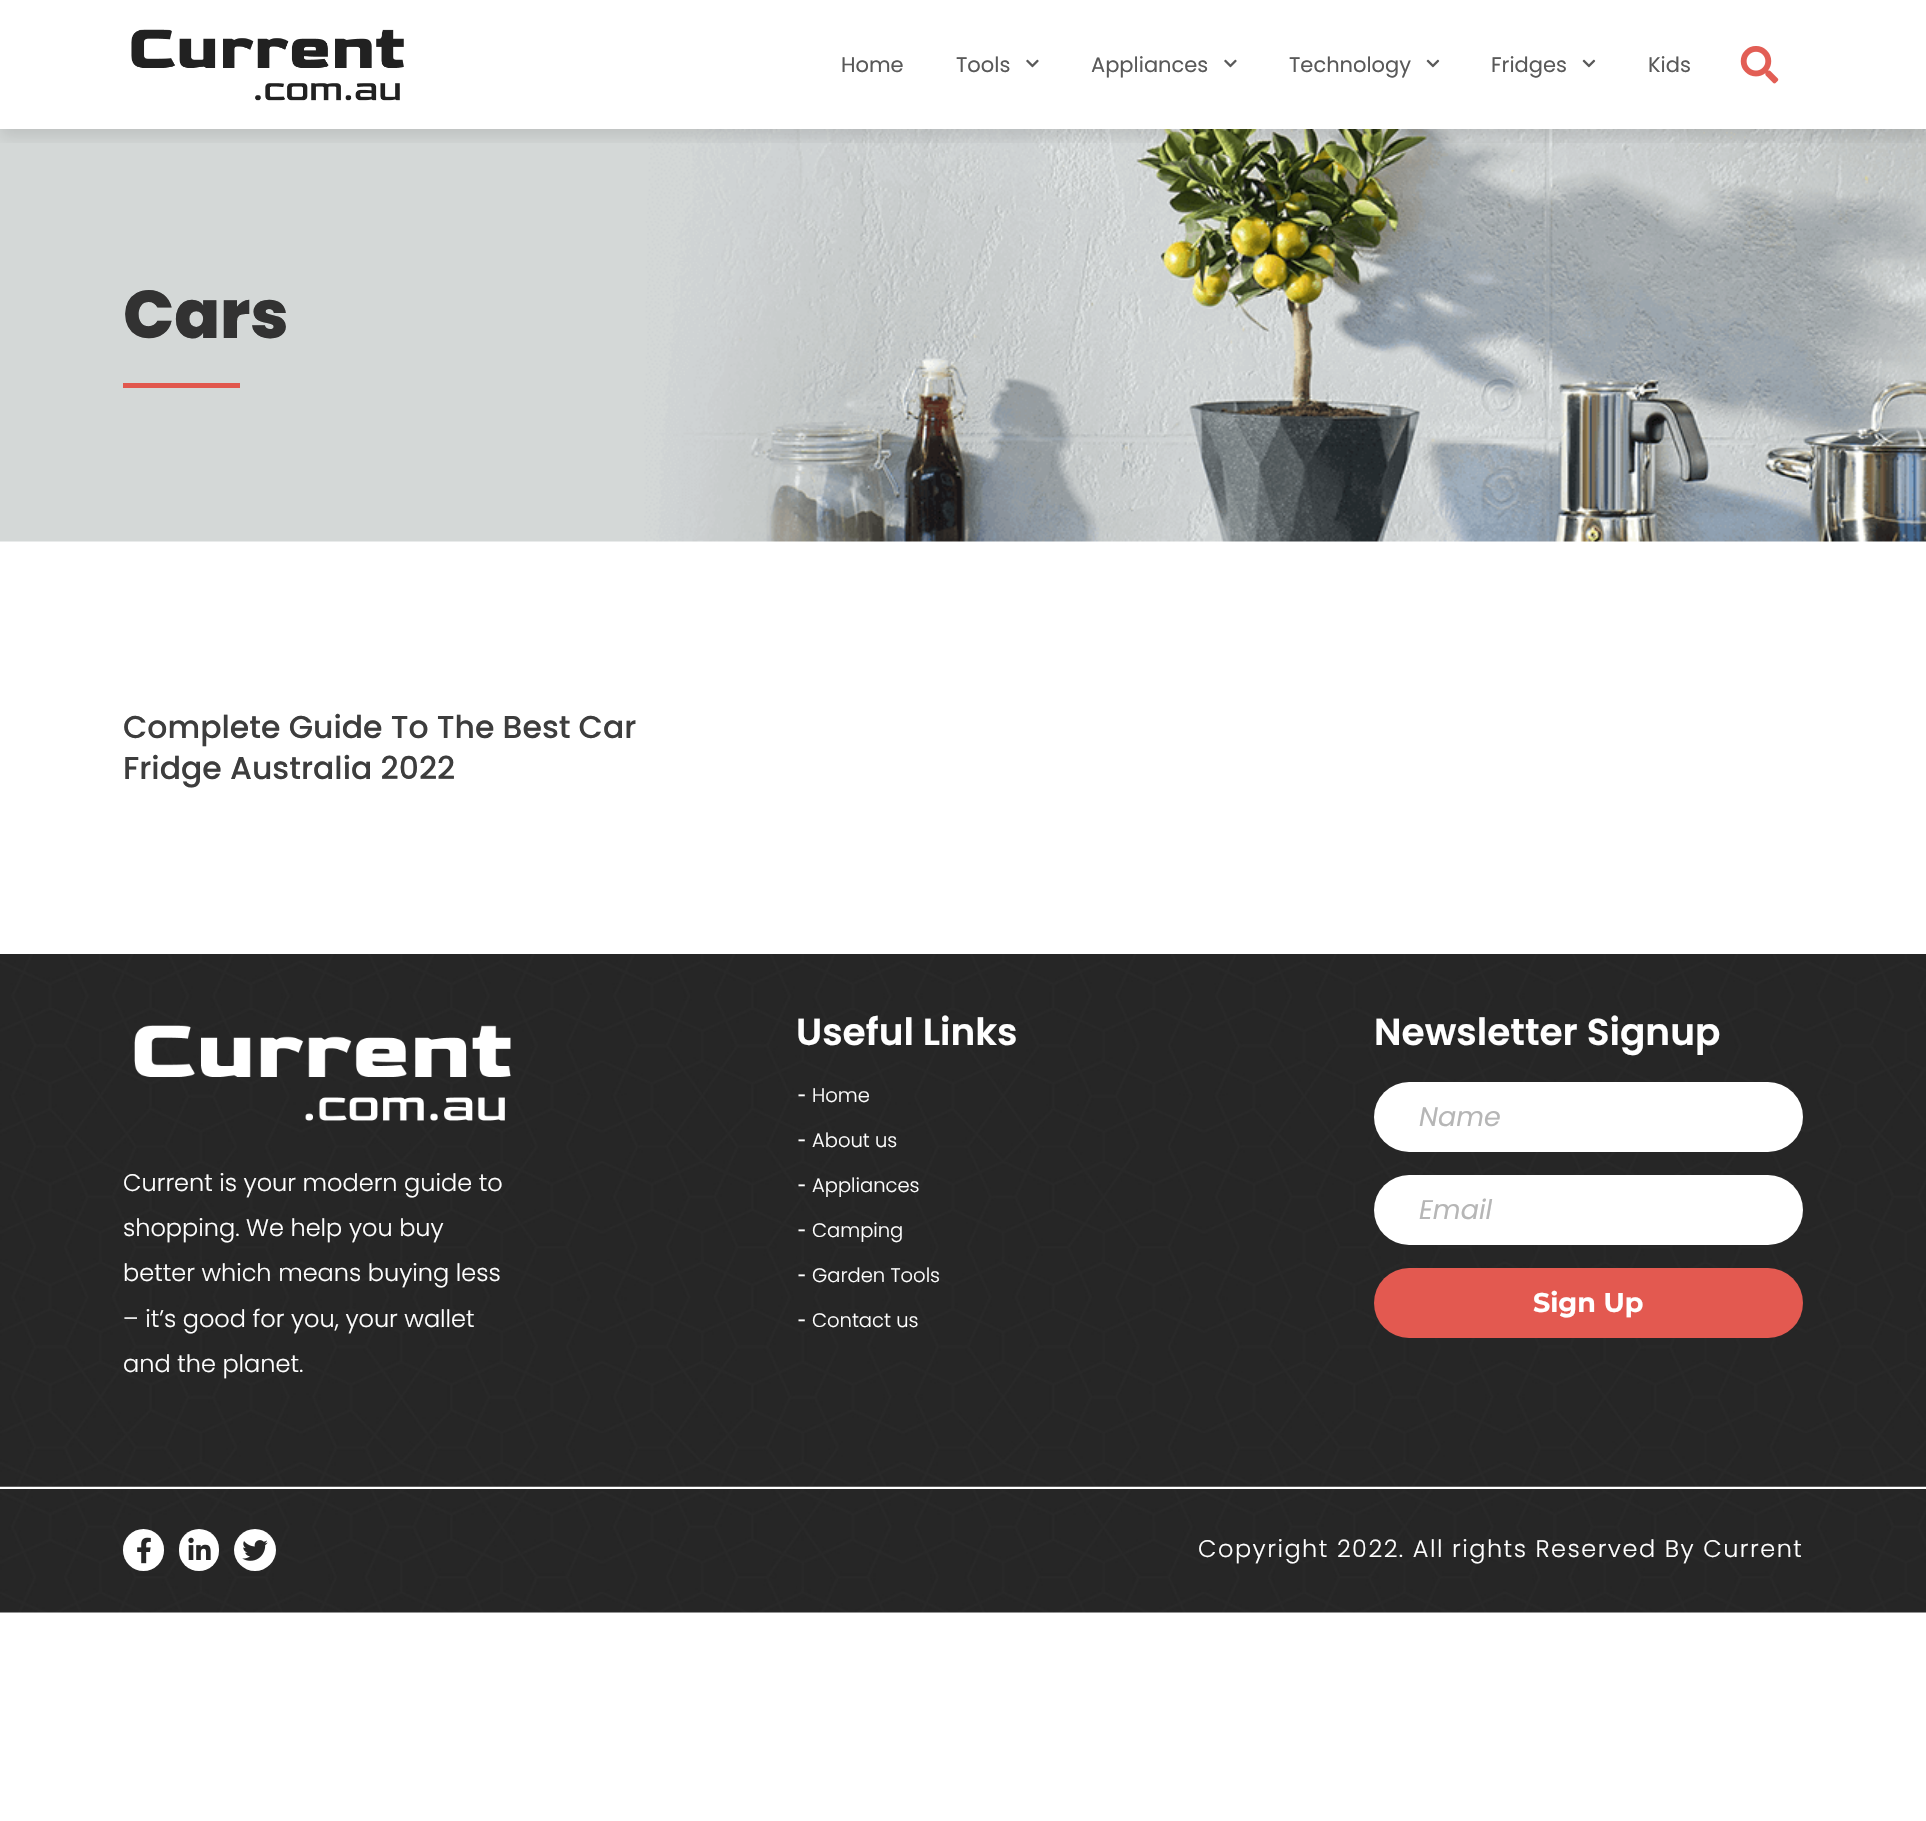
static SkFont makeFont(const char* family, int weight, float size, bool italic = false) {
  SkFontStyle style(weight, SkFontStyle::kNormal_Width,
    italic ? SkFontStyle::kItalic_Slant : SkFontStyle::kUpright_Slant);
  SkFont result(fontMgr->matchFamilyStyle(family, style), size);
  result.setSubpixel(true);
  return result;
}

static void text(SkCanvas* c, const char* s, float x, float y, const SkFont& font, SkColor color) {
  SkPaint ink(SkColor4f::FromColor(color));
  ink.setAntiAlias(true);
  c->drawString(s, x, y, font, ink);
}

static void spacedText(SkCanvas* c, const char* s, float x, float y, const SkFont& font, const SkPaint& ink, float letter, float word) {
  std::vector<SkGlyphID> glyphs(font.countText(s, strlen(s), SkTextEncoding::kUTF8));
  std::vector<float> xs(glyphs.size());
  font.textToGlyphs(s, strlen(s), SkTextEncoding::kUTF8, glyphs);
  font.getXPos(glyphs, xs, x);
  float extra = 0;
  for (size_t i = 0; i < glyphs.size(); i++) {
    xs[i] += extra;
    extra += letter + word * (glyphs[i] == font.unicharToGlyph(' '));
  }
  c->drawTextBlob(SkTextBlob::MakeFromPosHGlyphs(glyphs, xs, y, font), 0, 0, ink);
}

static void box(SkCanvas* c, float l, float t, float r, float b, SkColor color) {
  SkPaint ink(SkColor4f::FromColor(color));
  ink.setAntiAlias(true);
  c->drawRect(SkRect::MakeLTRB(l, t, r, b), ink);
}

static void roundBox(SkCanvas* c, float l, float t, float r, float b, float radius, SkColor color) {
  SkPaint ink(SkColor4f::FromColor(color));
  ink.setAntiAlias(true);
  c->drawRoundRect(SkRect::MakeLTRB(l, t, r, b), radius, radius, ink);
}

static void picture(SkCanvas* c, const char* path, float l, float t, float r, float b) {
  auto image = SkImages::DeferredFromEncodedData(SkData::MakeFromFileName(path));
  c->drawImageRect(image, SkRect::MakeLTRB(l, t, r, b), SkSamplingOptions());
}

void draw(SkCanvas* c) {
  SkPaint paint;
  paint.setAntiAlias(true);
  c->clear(0xffffffff);
  picture(c, "img_05.png", 0, 129, 1926, 542);
  c->save();
  c->clipRect(SkRect::MakeLTRB(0, 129, 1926, 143));
  paint.setColor(0x1a000000);
  paint.setMaskFilter(SkMaskFilter::MakeBlur(kNormal_SkBlurStyle, 7.5f));
  c->drawRect(SkRect::MakeLTRB(0, 8, 1926, 137), paint);
  paint.setMaskFilter(nullptr);
  c->restore();
  picture(c, "img_01.png", 131, 29, 404, 101);
  SkFont face1 = makeFont("Poppins", 400, 21);
  text(c, "Home", 841, 72, face1, 0xff595959);
  text(c, "Tools", 956, 72, face1, 0xff595959);
  picture(c, "img_02.png", 1026, 59, 1039, 68);
  text(c, "Appliances", 1091, 72, face1, 0xff595959);
  picture(c, "img_02.png", 1224, 59, 1237, 68);
  text(c, "Technology", 1289, 72, face1, 0xff595959);
  picture(c, "img_03.png", 1426, 59, 1440, 68);
  text(c, "Fridges", 1491, 72, face1, 0xff595959);
  picture(c, "img_03.png", 1582, 59, 1596, 68);
  text(c, "Kids", 1648, 72, face1, 0xff595959);
  picture(c, "img_04.png", 1740, 46, 1779, 84);
  SkFont face2 = makeFont("Poppins", 800, 67.5f);
  text(c, "Cars", 123, 338, face2, 0xff323232);
  box(c, 123, 383, 240, 388, 0xffe1574d);
  SkFont face3 = makeFont("Poppins", 500, 31.5f);
  text(c, "Complete Guide To The Best Car", 123, 738, face3, 0xff3d3d3d);
  text(c, "Fridge Australia 2022", 123, 779, face3, 0xff3d3d3d);
  picture(c, "img_06.png", 0, 954, 1926, 1487);
  picture(c, "img_07.png", 134, 1025, 511, 1121);
  SkFont face4 = makeFont("Poppins", 300, 24);
  text(c, "Current is your modern guide to", 123, 1191, face4, 0xffffffff);
  text(c, "shopping. We help you buy", 123, 1236, face4, 0xffffffff);
  text(c, "better which means buying less", 123, 1281, face4, 0xffffffff);
  text(c, "– it’s good for you, your wallet", 123, 1327, face4, 0xffffffff);
  text(c, "and the planet.", 123, 1372, face4, 0xffffffff);
  SkFont face5 = makeFont("Poppins", 600, 37.5f);
  text(c, "Useful Links", 796, 1045, face5, 0xffffffff);
  SkFont face6 = makeFont("Domine", 400, 24);
  text(c, "-", 797, 1102, face6, 0xffffffff);
  SkFont face7 = makeFont("Poppins", 300, 19.5f);
  text(c, "Home", 812, 1102, face7, 0xffffffff);
  text(c, "-", 797, 1147, face6, 0xffffffff);
  text(c, "About us", 812, 1147, face7, 0xffffffff);
  text(c, "-", 797, 1192, face6, 0xffffffff);
  text(c, "Appliances", 812, 1192, face7, 0xffffffff);
  text(c, "-", 797, 1237, face6, 0xffffffff);
  text(c, "Camping", 812, 1237, face7, 0xffffffff);
  text(c, "-", 797, 1282, face6, 0xffffffff);
  text(c, "Garden Tools", 812, 1282, face7, 0xffffffff);
  text(c, "-", 797, 1327, face6, 0xffffffff);
  text(c, "Contact us", 812, 1327, face7, 0xffffffff);
  text(c, "Newsletter Signup", 1374, 1045, face5, 0xffffffff);
  roundBox(c, 1374, 1082, 1803, 1152, 35, 0xffffffff);
  SkFont face8 = makeFont("Poppins", 400, 27, true);
  text(c, "Name", 1419, 1126, face8, 0xffb6b6b6);
  roundBox(c, 1374, 1175, 1803, 1245, 35, 0xffffffff);
  text(c, "Email", 1419, 1219, face8, 0xffb6b6b6);
  roundBox(c, 1374, 1268, 1803, 1338, 35, 0xffe35950);
  SkFont face9 = makeFont("Montserrat", 700, 27);
  text(c, "Sign Up", 1533, 1312, face9, 0xffffffff);
  picture(c, "img_08.png", 0, 1486, 1926, 1613);
  box(c, 0, 1487, 1926, 1489, 0xffffffff);
  roundBox(c, 123, 1529, 164, 1571, 20.5f, 0xffffffff);
  picture(c, "img_09.png", 137, 1537, 151, 1564);
  roundBox(c, 179, 1529, 219, 1571, 20, 0xffffffff);
  picture(c, "img_10.png", 188, 1537, 211, 1560);
  paint.setColor(0xffffffff);
  c->drawCircle(255, 1550, 21, paint);
  picture(c, "img_11.png", 242, 1540, 268, 1561);
  spacedText(c, "Copyright 2022. All rights Reserved By Current", 1198, 1557, face4, paint, 1.5f, 0);
}
